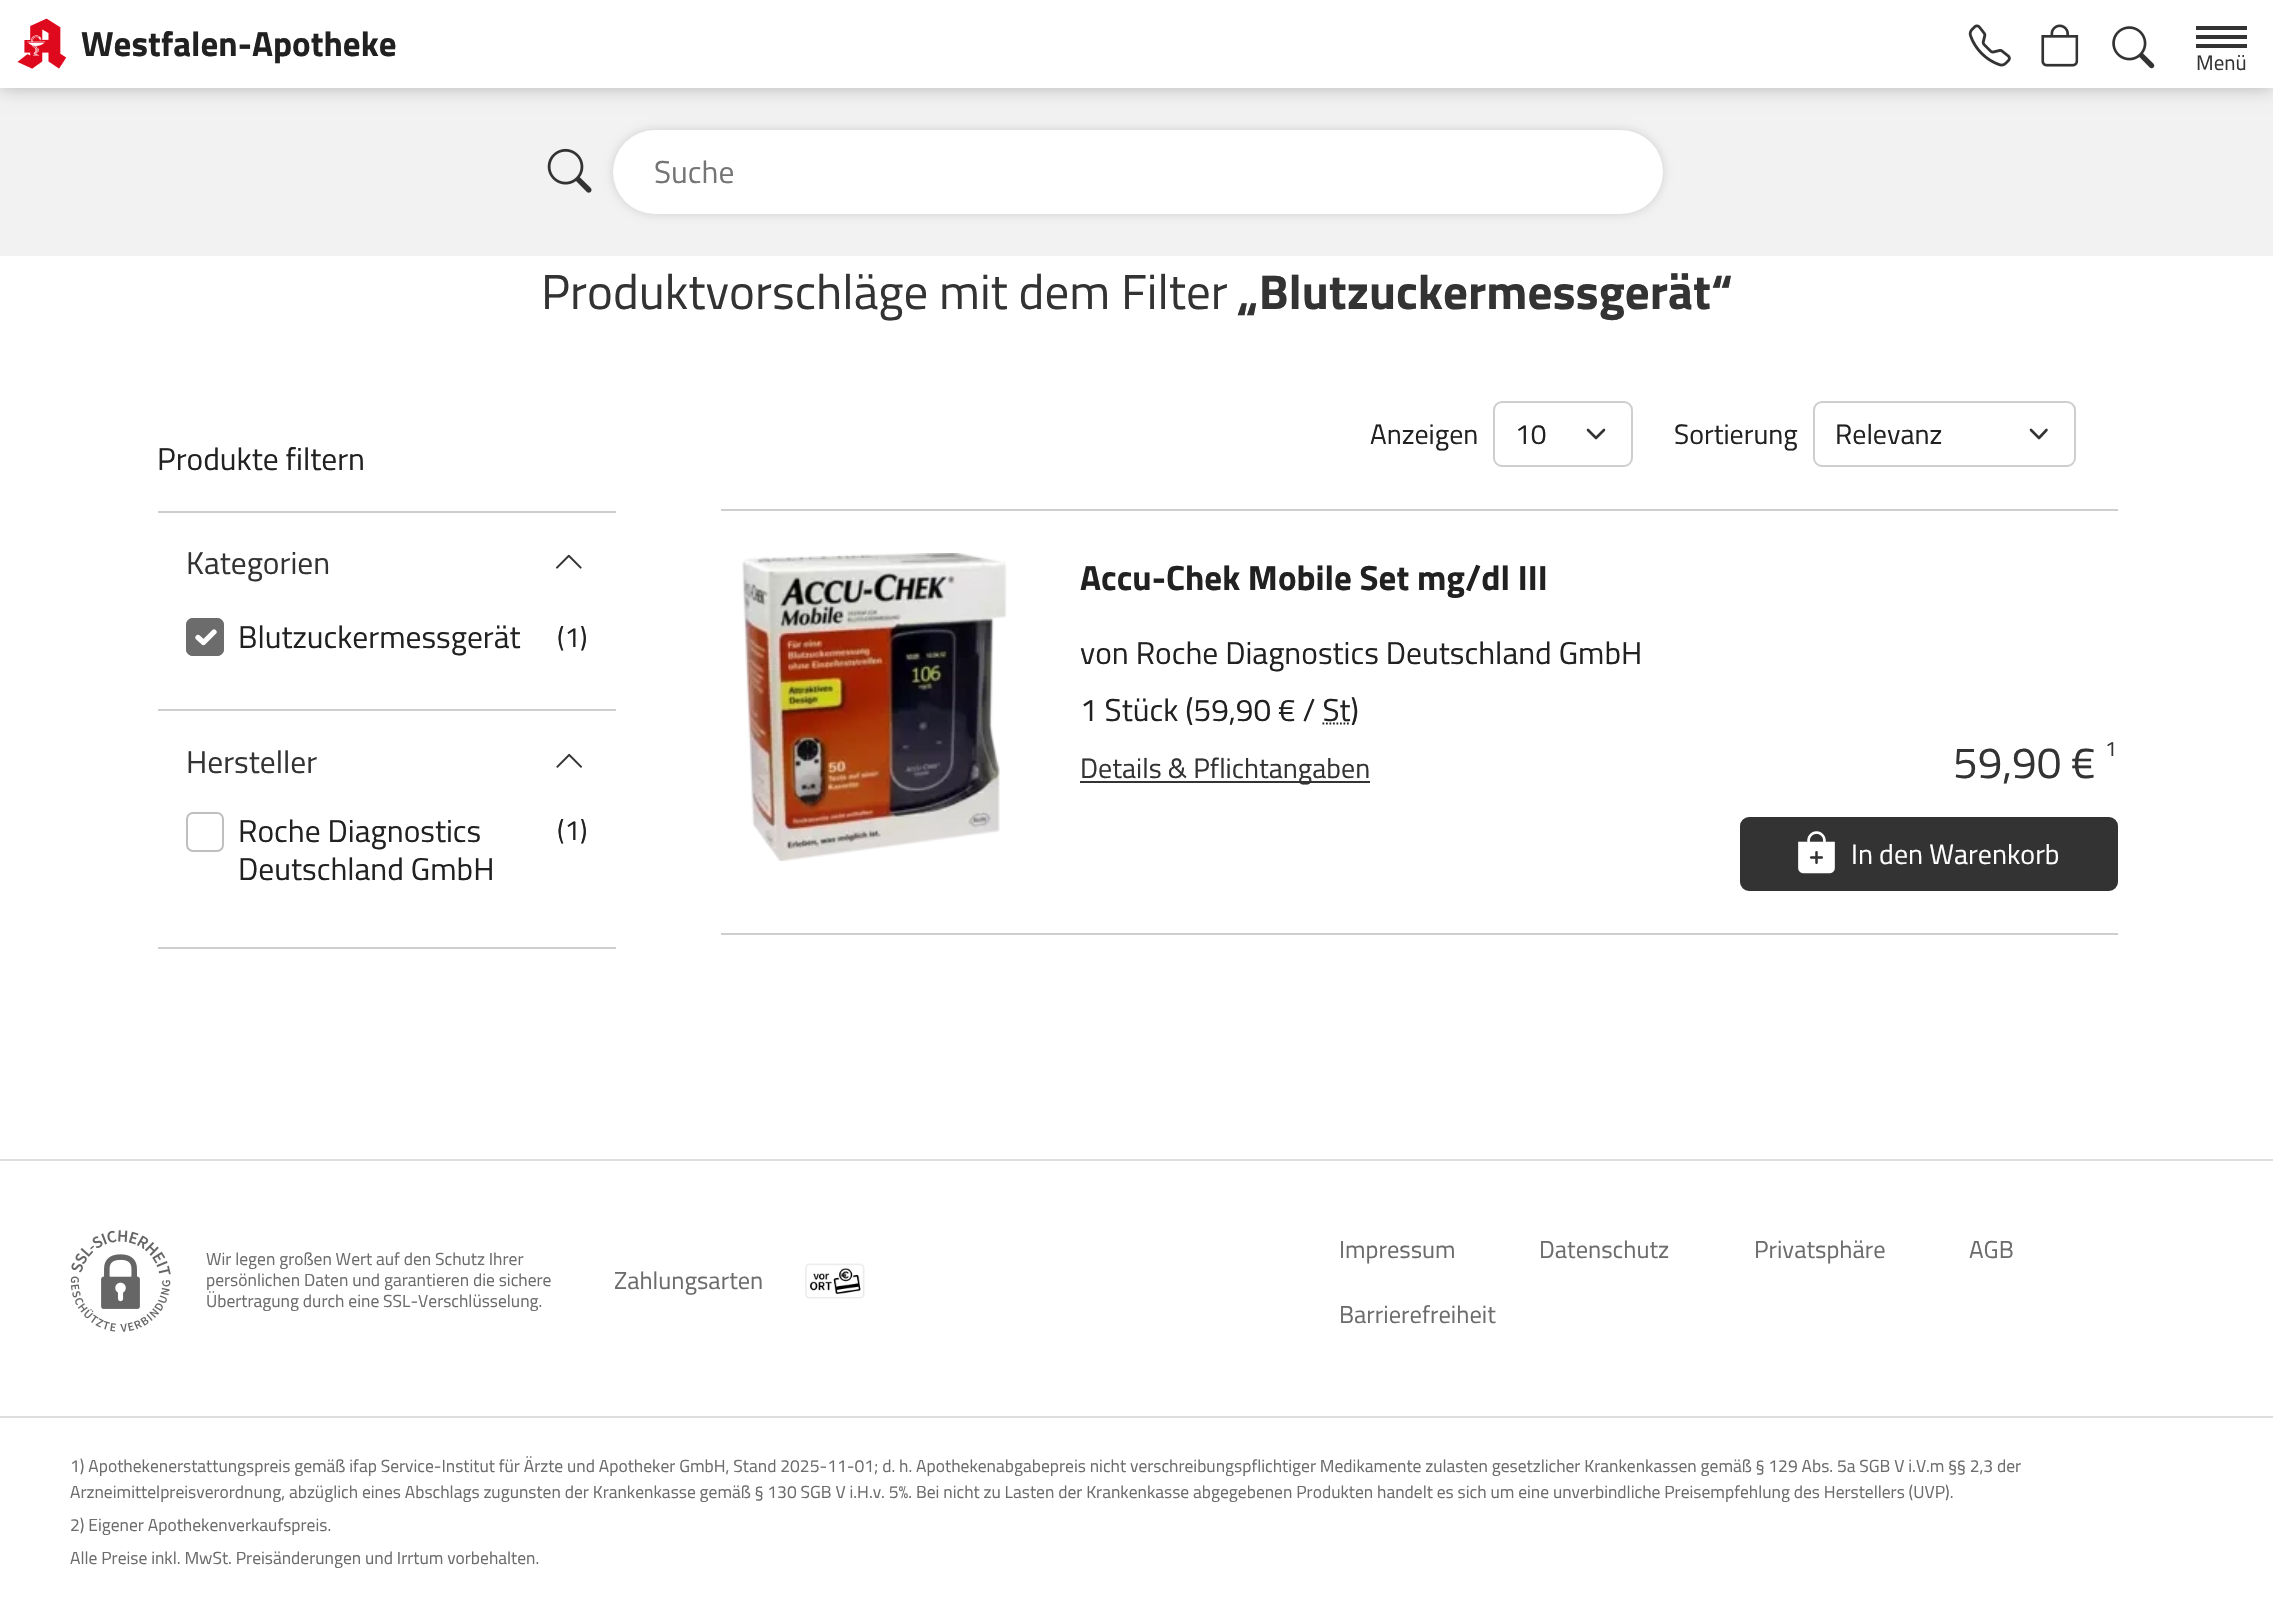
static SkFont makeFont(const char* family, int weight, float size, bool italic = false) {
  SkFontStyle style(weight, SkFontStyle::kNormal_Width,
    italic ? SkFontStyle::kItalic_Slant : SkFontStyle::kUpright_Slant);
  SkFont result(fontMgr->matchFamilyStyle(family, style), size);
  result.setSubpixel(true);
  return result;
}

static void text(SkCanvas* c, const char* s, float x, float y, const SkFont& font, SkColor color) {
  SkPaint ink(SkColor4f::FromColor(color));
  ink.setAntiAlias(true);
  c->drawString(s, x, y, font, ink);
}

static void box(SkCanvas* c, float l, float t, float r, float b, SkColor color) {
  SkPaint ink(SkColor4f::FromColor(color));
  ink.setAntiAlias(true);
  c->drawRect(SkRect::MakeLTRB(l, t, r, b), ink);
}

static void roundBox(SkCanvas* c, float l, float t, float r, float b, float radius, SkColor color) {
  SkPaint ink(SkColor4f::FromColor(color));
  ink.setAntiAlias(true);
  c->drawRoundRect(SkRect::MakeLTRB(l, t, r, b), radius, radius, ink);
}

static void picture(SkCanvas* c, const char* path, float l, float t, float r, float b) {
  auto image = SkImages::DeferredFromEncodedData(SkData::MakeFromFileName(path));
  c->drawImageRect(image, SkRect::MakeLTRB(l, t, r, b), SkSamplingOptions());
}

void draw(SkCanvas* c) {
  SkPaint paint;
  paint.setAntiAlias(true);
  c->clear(0xffffffff);
  box(c, 0, 88, 2273, 256, 0xfff2f2f2);
  paint.setColor(0x40000000);
  paint.setMaskFilter(SkMaskFilter::MakeBlur(kNormal_SkBlurStyle, 9));
  c->drawRect(SkRect::MakeLTRB(0, 0, 2273, 88), paint);
  paint.setMaskFilter(nullptr);
  box(c, 0, 0, 2273, 88, 0xffffffff);
  picture(c, "img_01.png", 17, 18, 67, 69);
  SkFont face1 = makeFont("Titillium Web", 700, 35);
  text(c, "Westfalen-Apotheke", 81, 56, face1, 0xff212121);
  picture(c, "img_02.png", 1968, 24, 2011, 67);
  picture(c, "img_03.png", 2041, 24, 2079, 67);
  picture(c, "img_04.png", 2112, 26, 2155, 69);
  box(c, 2196, 35, 2247, 39, 0xff333333);
  box(c, 2196, 26, 2247, 30, 0xff333333);
  box(c, 2196, 44, 2247, 48, 0xff333333);
  SkFont face2 = makeFont("Titillium Web", 400, 21);
  text(c, "Menü", 2196, 70, face2, 0xff333333);
  picture(c, "img_05.png", 547, 148, 592, 193);
  paint.setColor(0x26000000);
  paint.setMaskFilter(SkMaskFilter::MakeBlur(kNormal_SkBlurStyle, 5));
  c->drawRoundRect(SkRect::MakeLTRB(613, 130, 1663, 214), 42, 42, paint);
  paint.setMaskFilter(nullptr);
  roundBox(c, 613, 130, 1663, 214, 42, 0xffffffff);
  SkFont face3 = makeFont("Titillium Web", 400, 31.5f);
  text(c, "Suche", 654, 183, face3, 0xff757575);
  SkFont face4 = makeFont("Titillium Web", 400, 49);
  text(c, "Produktvorschläge mit dem Filter", 541, 309, face4, 0xff333333);
  SkFont face5 = makeFont("Titillium Web", 700, 49);
  text(c, "„Blutzuckermessgerät“", 1238, 309, face5, 0xff333333);
  box(c, 158, 511, 616, 513, 0xffcecece);
  text(c, "Produkte filtern", 157, 470, face3, 0xff212121);
  box(c, 158, 709, 616, 711, 0xffcecece);
  text(c, "Kategorien", 186, 574, face3, 0xff333333);
  picture(c, "img_06.png", 556, 554, 582, 569);
  roundBox(c, 186, 618, 224, 656, 7, 0xff6c6c6c);
  paint.setStyle(SkPaint::kStroke_Style);
  paint.setStrokeWidth(5.3f);
  paint.setStrokeCap(SkPaint::kRound_Cap);
  paint.setStrokeJoin(SkPaint::kRound_Join);
  paint.setColor(0xffffffff);
  c->drawPath(SkPathBuilder().moveTo(198, 637.5f).lineTo(203.5f, 642.5f).lineTo(214, 632).detach(), paint);
  paint.setStrokeWidth(2);
  paint.setStrokeCap(SkPaint::kButt_Cap);
  paint.setStrokeJoin(SkPaint::kMiter_Join);
  paint.setColor(0xff6c6c6c);
  c->drawRoundRect(SkRect::MakeLTRB(187, 619, 223, 655), 6, 6, paint);
  text(c, "Blutzuckermessgerät", 238, 648, face3, 0xff212121);
  SkFont face6 = makeFont("Titillium Web", 400, 28);
  text(c, "(1)", 557, 647, face6, 0xff212121);
  box(c, 158, 947, 616, 949, 0xffcecece);
  text(c, "Hersteller", 186, 773, face3, 0xff333333);
  picture(c, "img_07.png", 556, 753, 582, 768);
  paint.setColor(0xffbfbfbf);
  c->drawRoundRect(SkRect::MakeLTRB(187, 813, 223, 851), 6, 6, paint);
  text(c, "Roche Diagnostics", 238, 842, face3, 0xff212121);
  text(c, "Deutschland GmbH", 238, 880, face3, 0xff212121);
  text(c, "(1)", 557, 840, face6, 0xff212121);
  text(c, "Anzeigen", 1370, 444, face6, 0xff212121);
  paint.setStrokeWidth(2.6f);
  paint.setStrokeCap(SkPaint::kRound_Cap);
  paint.setStrokeJoin(SkPaint::kRound_Join);
  paint.setColor(0xff343434);
  c->drawPath(SkPathBuilder().moveTo(1588, 430).lineTo(1596, 438).lineTo(1604, 430).detach(), paint);
  paint.setStrokeWidth(2);
  paint.setStrokeCap(SkPaint::kButt_Cap);
  paint.setStrokeJoin(SkPaint::kMiter_Join);
  paint.setColor(0xffcecece);
  c->drawRoundRect(SkRect::MakeLTRB(1494, 402, 1632, 466), 8, 8, paint);
  text(c, "10", 1515, 444, face6, 0xff212121);
  text(c, "Sortierung", 1674, 444, face6, 0xff212121);
  paint.setStrokeWidth(2.6f);
  paint.setStrokeCap(SkPaint::kRound_Cap);
  paint.setStrokeJoin(SkPaint::kRound_Join);
  paint.setColor(0xff343434);
  c->drawPath(SkPathBuilder().moveTo(2031, 430).lineTo(2039, 438).lineTo(2046.5f, 430).detach(), paint);
  paint.setStrokeWidth(2);
  paint.setStrokeCap(SkPaint::kButt_Cap);
  paint.setStrokeJoin(SkPaint::kMiter_Join);
  paint.setColor(0xffcecece);
  c->drawRoundRect(SkRect::MakeLTRB(1814, 402, 2075, 466), 8, 8, paint);
  text(c, "Relevanz", 1835, 444, face6, 0xff212121);
  box(c, 721, 509, 2118, 511, 0xffcecece);
  box(c, 721, 933, 2118, 935, 0xffcecece);
  text(c, "Accu-Chek Mobile Set mg/dl III", 1080, 590, face1, 0xff212121);
  picture(c, "img_08.png", 742, 553, 1007, 861);
  text(c, "von Roche Diagnostics Deutschland GmbH", 1080, 664, face3, 0xff212121);
  text(c, "1 Stück (59,90 € / St)", 1080, 721, face3, 0xff212121);
  paint.setStrokeWidth(1.8f);
  paint.setColor(0xff212121);
  paint.setPathEffect(SkDashPathEffect::Make({{1.75f, 1.75f}}, 0));
  c->drawPath(SkPathBuilder().moveTo(1322.5f, 723.5f).lineTo(1350.5f, 723.5f).detach(), paint);
  paint.setPathEffect(nullptr);
  box(c, 1080, 781, 1370, 783, 0xff333333);
  text(c, "Details & Pflichtangaben", 1080, 778, face6, 0xff333333);
  SkFont face7 = makeFont("Titillium Web", 400, 44);
  text(c, "59,90 €", 1953, 778, face7, 0xff333333);
  text(c, "1", 2105, 756, face2, 0xff333333);
  paint.setStyle(SkPaint::kFill_Style);
  paint.setColor(0xff333333);
  c->drawRoundRect(SkRect::MakeLTRB(1741, 818, 2117, 890), 8, 8, paint);
  paint.setStyle(SkPaint::kStroke_Style);
  paint.setStrokeWidth(2);
  c->drawRoundRect(SkRect::MakeLTRB(1741, 818, 2117, 890), 8, 8, paint);
  picture(c, "img_09.png", 1798, 831, 1835, 874);
  text(c, "In den Warenkorb", 1851, 864, face6, 0xffffffff);
  box(c, 0, 1159, 2273, 1161, 0xffdedede);
  picture(c, "img_10.png", 70, 1230, 171, 1332);
  SkFont face8 = makeFont("Titillium Web", 400, 17.5f);
  text(c, "Wir legen großen Wert auf den Schutz Ihrer", 206, 1265, face8, 0xff6c6c6c);
  text(c, "persönlichen Daten und garantieren die sichere", 206, 1286, face8, 0xff6c6c6c);
  text(c, "Übertragung durch eine SSL-Verschlüsselung.", 206, 1307, face8, 0xff6c6c6c);
  SkFont face9 = makeFont("Titillium Web", 400, 24.5f);
  text(c, "Zahlungsarten", 614, 1289, face9, 0xff6c6c6c);
  picture(c, "img_11.png", 805, 1263, 865, 1299);
  text(c, "Impressum", 1339, 1258, face9, 0xff6c6c6c);
  text(c, "Datenschutz", 1539, 1258, face9, 0xff6c6c6c);
  text(c, "Privatsphäre", 1754, 1258, face9, 0xff6c6c6c);
  text(c, "AGB", 1969, 1258, face9, 0xff6c6c6c);
  text(c, "Barrierefreiheit", 1339, 1323, face9, 0xff6c6c6c);
  box(c, 0, 1416, 2273, 1418, 0xffdedede);
  text(c, "1) Apothekenerstattungspreis gemäß ifap Service-Institut für Ärzte und Apotheker GmbH, Stand 2025-11-01; d. h. Apothekenabgabepreis nicht verschreibungspflichtiger Medikamente zulasten gesetzlicher Krankenkassen gemäß § 129 Abs. 5a SGB V i.V.m §§ 2,3 der", 70, 1472, face8, 0xff6c6c6c);
  text(c, "Arzneimittelpreisverordnung, abzüglich eines Abschlags zugunsten der Krankenkasse gemäß § 130 SGB V i.H.v. 5%. Bei nicht zu Lasten der Krankenkasse abgegebenen Produkten handelt es sich um eine unverbindliche Preisempfehlung des Herstellers (UVP).", 70, 1498, face8, 0xff6c6c6c);
  text(c, "2) Eigener Apothekenverkaufspreis.", 70, 1531, face8, 0xff6c6c6c);
  text(c, "Alle Preise inkl. MwSt. Preisänderungen und Irrtum vorbehalten.", 70, 1564, face8, 0xff6c6c6c);
}
